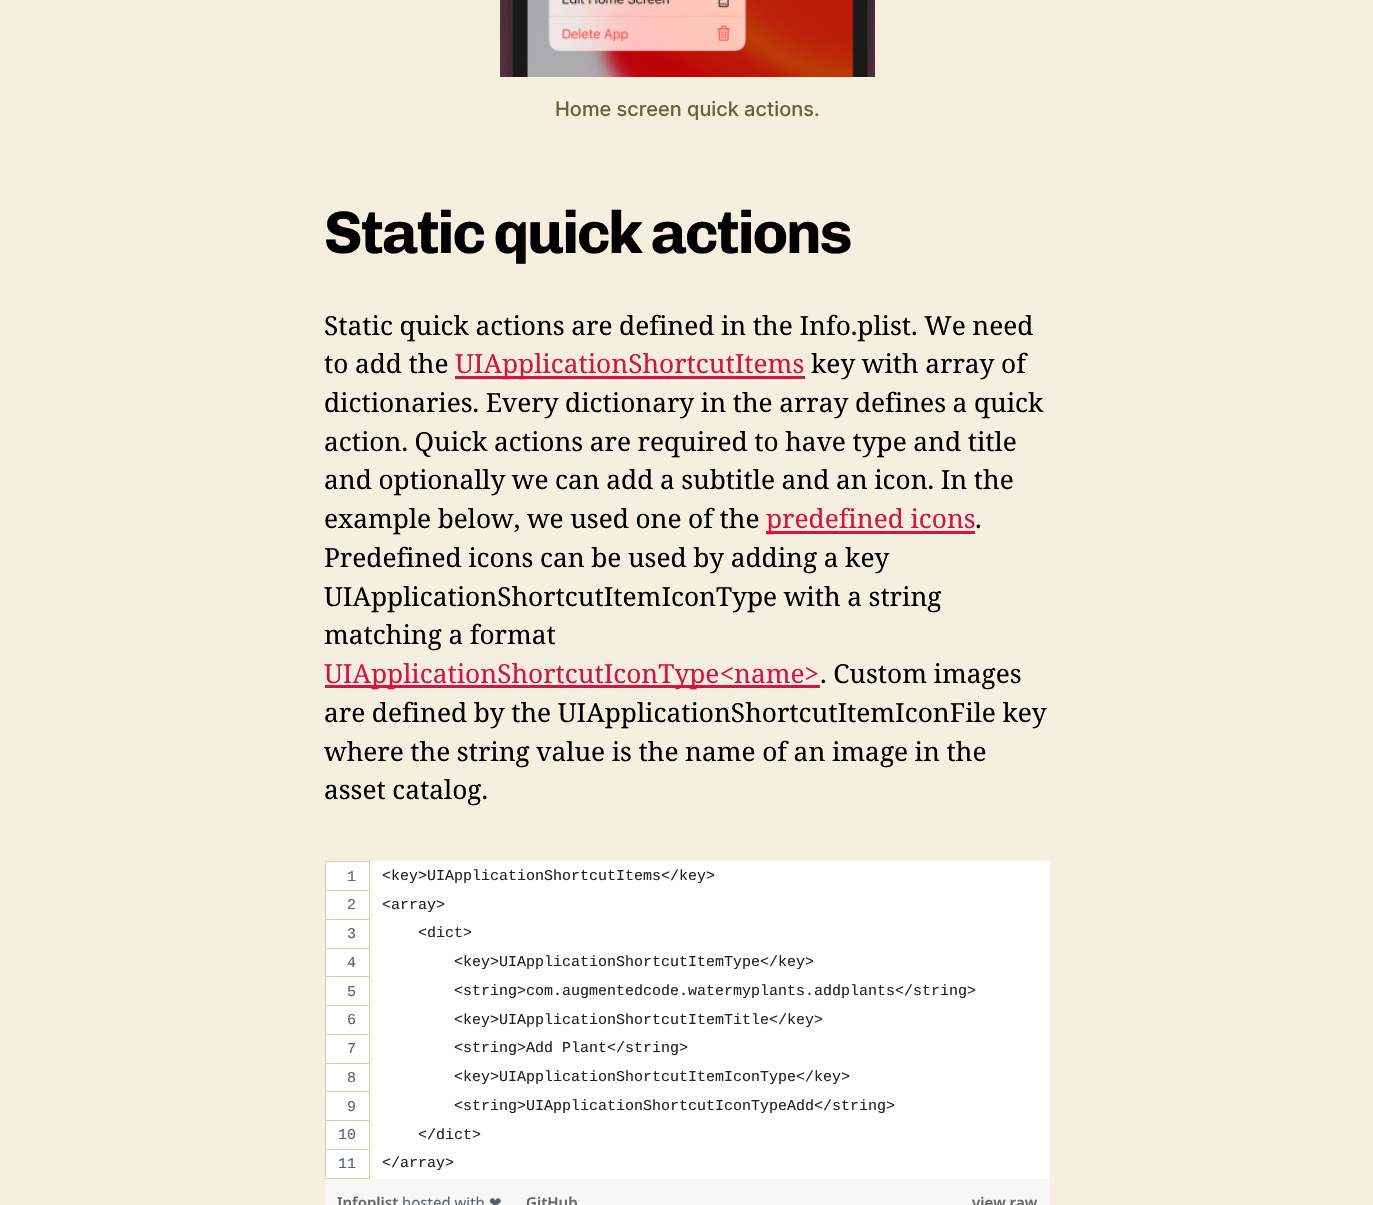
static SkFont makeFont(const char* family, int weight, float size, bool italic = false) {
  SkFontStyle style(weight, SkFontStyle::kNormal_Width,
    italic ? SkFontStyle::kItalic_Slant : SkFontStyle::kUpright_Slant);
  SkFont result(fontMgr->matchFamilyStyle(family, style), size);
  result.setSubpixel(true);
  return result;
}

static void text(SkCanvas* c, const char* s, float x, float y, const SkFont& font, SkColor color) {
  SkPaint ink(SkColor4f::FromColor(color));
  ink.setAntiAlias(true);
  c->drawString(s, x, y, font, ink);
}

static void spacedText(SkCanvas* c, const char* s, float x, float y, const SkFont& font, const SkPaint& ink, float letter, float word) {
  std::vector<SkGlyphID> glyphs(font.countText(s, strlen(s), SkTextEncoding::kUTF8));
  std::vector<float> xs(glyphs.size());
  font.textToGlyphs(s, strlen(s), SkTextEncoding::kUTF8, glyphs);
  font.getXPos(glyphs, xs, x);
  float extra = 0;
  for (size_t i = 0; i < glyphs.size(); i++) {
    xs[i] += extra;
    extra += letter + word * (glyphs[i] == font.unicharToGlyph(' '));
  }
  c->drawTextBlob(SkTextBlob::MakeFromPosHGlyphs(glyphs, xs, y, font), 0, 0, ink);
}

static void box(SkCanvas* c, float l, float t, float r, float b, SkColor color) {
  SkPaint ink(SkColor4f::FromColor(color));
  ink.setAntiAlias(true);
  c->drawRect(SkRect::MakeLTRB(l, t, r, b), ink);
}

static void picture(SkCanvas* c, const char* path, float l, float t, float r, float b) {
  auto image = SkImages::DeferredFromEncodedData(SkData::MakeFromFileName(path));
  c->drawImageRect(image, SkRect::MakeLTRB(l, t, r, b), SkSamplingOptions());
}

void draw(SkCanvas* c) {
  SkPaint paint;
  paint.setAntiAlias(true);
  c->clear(0xfff5efe0);
  picture(c, "img_01.png", 500, 0, 875, 77);
  SkFont face1 = makeFont("Inter", 500, 20);
  text(c, "Home screen quick actions.", 555, 116, face1, 0xff69603e);
  SkFont face2 = makeFont("Chivo", 500, 60);
  paint.setColor(0xff000000);
  spacedText(c, "Static quick actions", 324, 253, face2, paint, -2.5f, 0);
  SkFont face3 = makeFont("Noto Serif", 400, 26.25f);
  spacedText(c, "Static quick actions are defined in the Info.plist. We need", 324, 335, face3, paint, 0, -0.25f);
  spacedText(c, "to add the", 324, 373, face3, paint, 0, -0.25f);
  box(c, 455, 376, 805, 379, 0xffd61347);
  text(c, "UIApplicationShortcutItems", 455, 373, face3, 0xffd61347);
  spacedText(c, "key with array of", 811, 373, face3, paint, 0, -0.25f);
  spacedText(c, "dictionaries. Every dictionary in the array defines a quick", 324, 412, face3, paint, 0, -0.25f);
  spacedText(c, "action. Quick actions are required to have type and title", 324, 451, face3, paint, 0, -0.25f);
  spacedText(c, "and optionally we can add a subtitle and an icon. In the", 324, 489, face3, paint, 0, -0.25f);
  spacedText(c, "example below, we used one of the", 324, 528, face3, paint, 0, -0.25f);
  box(c, 766, 531, 975, 534, 0xffd61347);
  paint.setColor(0xffd61347);
  spacedText(c, "predefined icons", 766, 528, face3, paint, 0, -0.25f);
  text(c, ".", 975, 528, face3, 0xff000000);
  paint.setColor(0xff000000);
  spacedText(c, "Predefined icons can be used by adding a key", 324, 567, face3, paint, 0, -0.25f);
  spacedText(c, "UIApplicationShortcutItemIconType with a string", 324, 606, face3, paint, 0, -0.25f);
  spacedText(c, "matching a format", 324, 644, face3, paint, 0, -0.25f);
  box(c, 325, 685, 820, 688, 0xffd61347);
  text(c, "UIApplicationShortcutIconType<name>", 324, 683, face3, 0xffd61347);
  spacedText(c, ". Custom images", 820, 683, face3, paint, 0, -0.25f);
  spacedText(c, "are defined by the UIApplicationShortcutItemIconFile key", 324, 722, face3, paint, 0, -0.25f);
  spacedText(c, "where the string value is the name of an image in the", 324, 761, face3, paint, 0, -0.25f);
  spacedText(c, "asset catalog.", 324, 799, face3, paint, 0, -0.25f);
  box(c, 326, 861, 1050, 1179, 0xffffffff);
  box(c, 325, 861, 370, 862, 0xffd7cfab);
  box(c, 325, 890, 370, 891, 0xffd7cfab);
  box(c, 325, 919, 370, 920, 0xffd7cfab);
  box(c, 325, 948, 370, 949, 0xffd7cfab);
  box(c, 325, 976, 370, 977, 0xffd7cfab);
  box(c, 325, 1005, 370, 1006, 0xffd7cfab);
  box(c, 325, 1034, 370, 1035, 0xffd7cfab);
  box(c, 325, 1063, 370, 1064, 0xffd7cfab);
  box(c, 325, 1091, 370, 1092, 0xffd7cfab);
  box(c, 325, 1120, 370, 1121, 0xffd7cfab);
  box(c, 325, 1149, 370, 1150, 0xffd7cfab);
  box(c, 369, 1149, 370, 1179, 0xffd7cfab);
  box(c, 369, 1120, 370, 1150, 0xffd7cfab);
  box(c, 369, 1091, 370, 1121, 0xffd7cfab);
  box(c, 369, 1063, 370, 1093, 0xffd7cfab);
  box(c, 369, 1034, 370, 1064, 0xffd7cfab);
  box(c, 369, 1005, 370, 1035, 0xffd7cfab);
  box(c, 369, 976, 370, 1006, 0xffd7cfab);
  box(c, 369, 948, 370, 978, 0xffd7cfab);
  box(c, 369, 919, 370, 949, 0xffd7cfab);
  box(c, 369, 890, 370, 920, 0xffd7cfab);
  box(c, 369, 861, 370, 891, 0xffd7cfab);
  box(c, 325, 1178, 370, 1179, 0xffd7cfab);
  box(c, 325, 1149, 326, 1179, 0xffd7cfab);
  box(c, 325, 1120, 326, 1150, 0xffd7cfab);
  box(c, 325, 1091, 326, 1121, 0xffd7cfab);
  box(c, 325, 1063, 326, 1093, 0xffd7cfab);
  box(c, 325, 1034, 326, 1064, 0xffd7cfab);
  box(c, 325, 1005, 326, 1035, 0xffd7cfab);
  box(c, 325, 976, 326, 1006, 0xffd7cfab);
  box(c, 325, 948, 326, 978, 0xffd7cfab);
  box(c, 325, 919, 326, 949, 0xffd7cfab);
  box(c, 325, 890, 326, 920, 0xffd7cfab);
  box(c, 325, 861, 326, 891, 0xffd7cfab);
  SkFont face4 = makeFont("Liberation Mono", 400, 15);
  text(c, "1", 347, 881, face4, 0xff59636e);
  text(c, "<key>UIApplicationShortcutItems</key>", 382, 880, face4, 0xff1f2328);
  text(c, "2", 347, 909, face4, 0xff59636e);
  text(c, "<array>", 382, 909, face4, 0xff1f2328);
  text(c, "3", 347, 938, face4, 0xff59636e);
  text(c, "<dict>", 418, 937, face4, 0xff1f2328);
  text(c, "4", 347, 967, face4, 0xff59636e);
  text(c, "<key>UIApplicationShortcutItemType</key>", 454, 966, face4, 0xff1f2328);
  text(c, "5", 347, 996, face4, 0xff59636e);
  text(c, "<string>com.augmentedcode.watermyplants.addplants</string>", 454, 995, face4, 0xff1f2328);
  text(c, "6", 347, 1024, face4, 0xff59636e);
  text(c, "<key>UIApplicationShortcutItemTitle</key>", 454, 1024, face4, 0xff1f2328);
  text(c, "7", 347, 1053, face4, 0xff59636e);
  text(c, "<string>Add Plant</string>", 454, 1052, face4, 0xff1f2328);
  text(c, "8", 347, 1082, face4, 0xff59636e);
  text(c, "<key>UIApplicationShortcutItemIconType</key>", 454, 1081, face4, 0xff1f2328);
  text(c, "9", 347, 1111, face4, 0xff59636e);
  text(c, "<string>UIApplicationShortcutIconTypeAdd</string>", 454, 1110, face4, 0xff1f2328);
  text(c, "10", 338, 1139, face4, 0xff59636e);
  text(c, "</dict>", 418, 1139, face4, 0xff1f2328);
  text(c, "11", 338, 1168, face4, 0xff59636e);
  text(c, "</array>", 382, 1167, face4, 0xff1f2328);
  box(c, 325, 1179, 1050, 1205, 0xfff7f7f7);
  SkFont face5 = makeFont("Noto Sans", 600, 15);
  text(c, "Infoplist", 337, 1208, face5, 0xff666666);
  SkFont face6 = makeFont("Noto Sans", 400, 15);
  text(c, "hosted with", 402, 1208, face6, 0xff59636e);
  SkFont face7 = makeFont("DejaVu Sans", 400, 15);
  text(c, "❤", 489, 1208, face7, 0xff59636e);
  text(c, "GitHub", 526, 1208, face5, 0xff666666);
  text(c, "view raw", 972, 1208, face5, 0xff666666);
}
